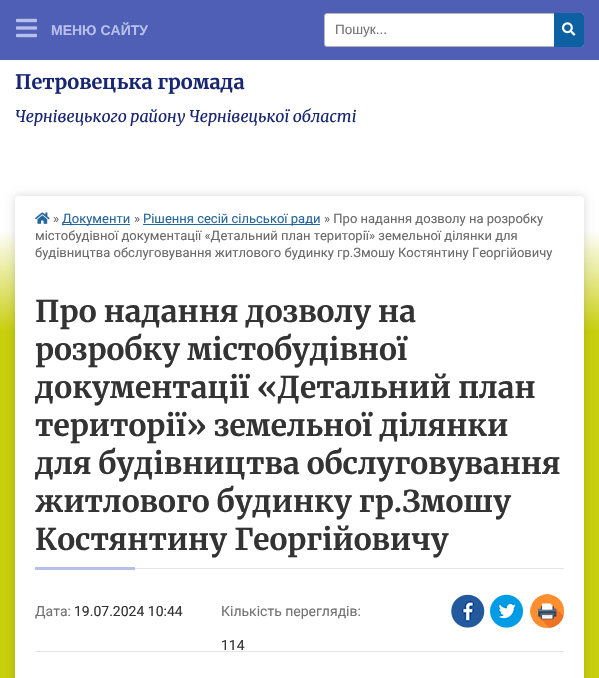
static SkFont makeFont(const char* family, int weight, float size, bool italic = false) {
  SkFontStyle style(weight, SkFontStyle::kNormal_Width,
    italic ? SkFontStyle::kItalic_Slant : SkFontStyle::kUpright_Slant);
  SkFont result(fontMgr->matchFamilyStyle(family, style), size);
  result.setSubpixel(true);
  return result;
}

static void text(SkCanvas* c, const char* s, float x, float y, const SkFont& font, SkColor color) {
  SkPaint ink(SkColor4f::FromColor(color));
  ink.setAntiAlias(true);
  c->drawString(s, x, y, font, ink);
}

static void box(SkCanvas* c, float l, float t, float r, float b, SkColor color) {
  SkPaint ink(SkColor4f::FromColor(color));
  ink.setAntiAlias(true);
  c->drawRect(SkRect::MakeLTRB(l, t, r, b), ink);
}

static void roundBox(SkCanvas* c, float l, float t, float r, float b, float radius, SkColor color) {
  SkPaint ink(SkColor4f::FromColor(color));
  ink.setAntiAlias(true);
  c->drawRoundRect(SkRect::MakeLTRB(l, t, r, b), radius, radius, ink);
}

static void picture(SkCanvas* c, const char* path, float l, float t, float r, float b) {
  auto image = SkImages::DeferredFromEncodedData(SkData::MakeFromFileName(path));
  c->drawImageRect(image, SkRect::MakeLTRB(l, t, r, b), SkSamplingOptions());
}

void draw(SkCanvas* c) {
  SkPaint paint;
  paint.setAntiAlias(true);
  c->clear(0xffffffff);
  {
    const SkColor colors[] = {0xffffffff, 0xffc8cf0d};
    const float stops[] = {0.16f, 0.24f};
    const SkPoint ends[] = {{299, 26}, {300, 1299}};
    paint.setShader(SkGradientShader::MakeLinear(ends, colors, stops, 2, SkTileMode::kClamp));
    paint.setAlpha(255);
  }
  c->drawRect(SkRect::MakeLTRB(0, 231, 599, 678), paint);
  paint.setShader(nullptr);
  paint.setColor(0x26000000);
  paint.setMaskFilter(SkMaskFilter::MakeBlur(kNormal_SkBlurStyle, 5));
  c->drawRoundRect(SkRect::MakeLTRB(15, 196, 584, 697), 4, 4, paint);
  paint.setMaskFilter(nullptr);
  roundBox(c, 15, 196, 584, 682, 4, 0xffffffff);
  box(c, 0, 0, 599, 60, 0xff4f5fb5);
  picture(c, "img_01.png", 16, 18, 37, 38);
  SkFont face1 = makeFont("Liberation Sans", 700, 14);
  text(c, "МЕНЮ САЙТУ", 51, 35, face1, 0xffb7bfeb);
  picture(c, "img_02.png", 35, 212, 50, 224);
  SkFont face2 = makeFont("Roboto", 400, 13);
  text(c, "»", 53, 223, face2, 0xff696969);
  box(c, 62, 224, 130, 225, 0xff25669c);
  text(c, "Документи", 62, 223, face2, 0xff25669c);
  text(c, "»", 134, 223, face2, 0xff696969);
  box(c, 143, 224, 320, 225, 0xff25669c);
  text(c, "Рішення сесій сільської ради", 143, 223, face2, 0xff25669c);
  text(c, "» Про надання дозволу на розробку", 324, 223, face2, 0xff696969);
  text(c, "містобудівної документації «Детальний план території» земельної ділянки для", 35, 240, face2, 0xff696969);
  text(c, "будівництва обслуговування житлового будинку гр.Змошу Костянтину Георгійовичу", 35, 257, face2, 0xff696969);
  box(c, 135, 568, 564, 569, 0xffe5e5e5);
  SkFont face3 = makeFont("Merriweather", 300, 30);
  text(c, "Про надання дозволу на", 35, 322, face3, 0xff333333);
  text(c, "розробку містобудівної", 35, 360, face3, 0xff333333);
  text(c, "документації «Детальний план", 35, 398, face3, 0xff333333);
  text(c, "території» земельної ділянки", 35, 436, face3, 0xff333333);
  text(c, "для будівництва обслуговування", 35, 474, face3, 0xff333333);
  text(c, "житлового будинку гр.Змошу", 35, 512, face3, 0xff333333);
  text(c, "Костянтину Георгійовичу", 35, 550, face3, 0xff333333);
  box(c, 35, 567, 135, 570, 0xffb7bfeb);
  SkFont face4 = makeFont("Roboto", 400, 14);
  text(c, "Дата:", 35, 616, face4, 0xff727272);
  text(c, "19.07.2024 10:44", 74, 616, face4, 0xff333333);
  text(c, "Кількість переглядів:", 221, 616, face4, 0xff727272);
  text(c, "114", 221, 650, face4, 0xff333333);
  picture(c, "img_03.png", 451, 594, 485, 628);
  picture(c, "img_04.png", 490, 594, 523, 628);
  picture(c, "img_05.png", 530, 594, 564, 628);
  box(c, 35, 651, 564, 652, 0xffe5e5e5);
  paint.setColor(0xffffffff);
  c->drawRoundRect(SkRect::MakeLTRB(324.5f, 13.5f, 583.5f, 46.5f), 2.5f, 2.5f, paint);
  paint.setStyle(SkPaint::kStroke_Style);
  paint.setStrokeWidth(1);
  paint.setColor(0xffb7b7b7);
  c->drawRoundRect(SkRect::MakeLTRB(324.5f, 13.5f, 583.5f, 46.5f), 2.5f, 2.5f, paint);
  SkFont face5 = makeFont("Liberation Sans", 400, 13.5f);
  text(c, "Пошук...", 335, 34, face5, 0xff727272);
  paint.setStyle(SkPaint::kFill_Style);
  paint.setColor(0xff0d61a2);
  c->drawPath(SkPathBuilder().moveTo(554, 13).lineTo(581, 13).cubicTo(582.5f, 13, 584, 14.5f, 584, 16).lineTo(584, 44).cubicTo(584, 45.5f, 582.5f, 47, 581, 47).lineTo(554, 47).close().detach(), paint);
  picture(c, "img_06.png", 562, 22, 576, 36);
  SkFont face6 = makeFont("Merriweather", 300, 20);
  text(c, "Петровецька громада", 15, 89, face6, 0xff182673);
  SkFont face7 = makeFont("Merriweather", 300, 16, true);
  text(c, "Чернівецького району Чернівецької області", 15, 122, face7, 0xff182673);
}
